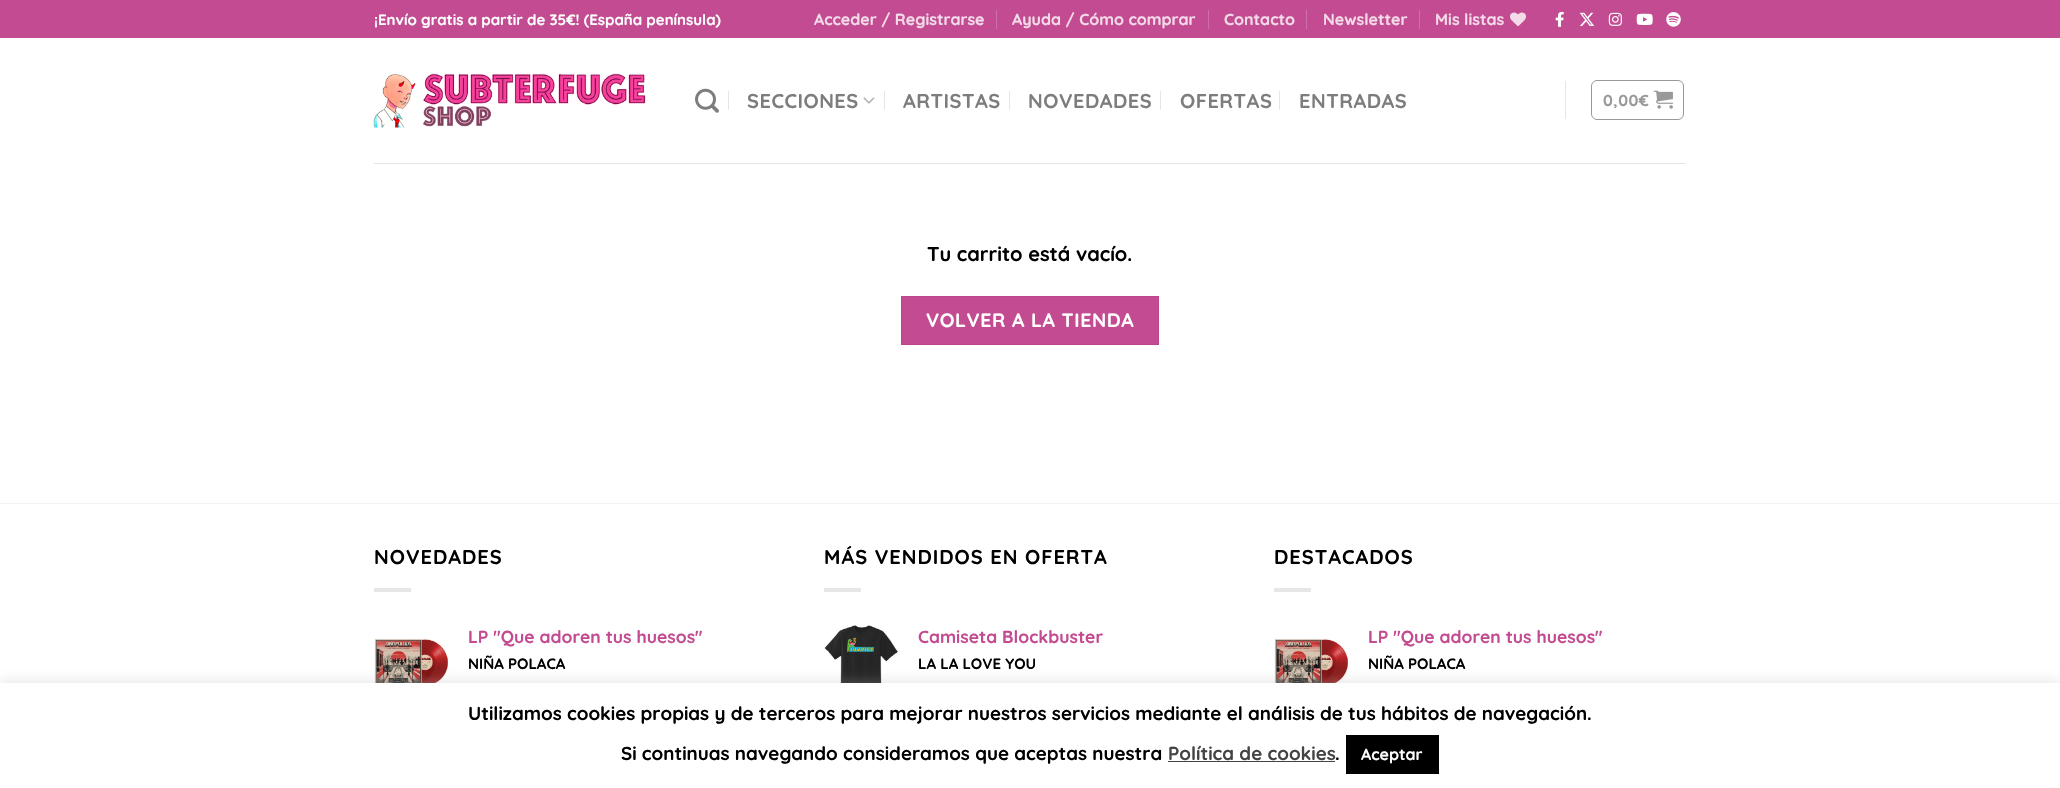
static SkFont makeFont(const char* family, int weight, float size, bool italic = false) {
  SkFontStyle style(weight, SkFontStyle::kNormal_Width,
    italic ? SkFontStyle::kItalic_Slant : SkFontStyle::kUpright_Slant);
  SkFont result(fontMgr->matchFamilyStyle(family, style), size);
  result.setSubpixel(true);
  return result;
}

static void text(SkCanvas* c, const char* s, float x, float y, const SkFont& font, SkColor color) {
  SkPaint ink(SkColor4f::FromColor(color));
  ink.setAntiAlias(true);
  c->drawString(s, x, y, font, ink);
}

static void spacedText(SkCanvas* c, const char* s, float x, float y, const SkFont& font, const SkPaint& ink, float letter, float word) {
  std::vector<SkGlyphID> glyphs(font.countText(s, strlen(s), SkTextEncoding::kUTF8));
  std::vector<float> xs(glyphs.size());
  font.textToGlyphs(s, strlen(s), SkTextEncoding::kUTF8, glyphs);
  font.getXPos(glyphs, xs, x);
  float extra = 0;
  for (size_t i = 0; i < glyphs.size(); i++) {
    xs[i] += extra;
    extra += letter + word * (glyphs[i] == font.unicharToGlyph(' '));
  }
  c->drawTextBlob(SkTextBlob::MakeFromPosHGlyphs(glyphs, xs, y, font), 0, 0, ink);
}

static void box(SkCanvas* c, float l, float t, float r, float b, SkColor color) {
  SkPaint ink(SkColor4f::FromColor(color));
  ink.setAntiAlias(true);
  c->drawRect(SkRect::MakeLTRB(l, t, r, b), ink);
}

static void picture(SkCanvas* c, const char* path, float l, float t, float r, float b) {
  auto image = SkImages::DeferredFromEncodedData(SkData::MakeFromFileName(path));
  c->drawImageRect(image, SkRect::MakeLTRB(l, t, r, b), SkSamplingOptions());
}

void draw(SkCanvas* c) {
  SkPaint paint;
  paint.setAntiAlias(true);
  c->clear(0xffffffff);
  box(c, 0, 0, 2060, 38, 0xffc34b91);
  SkFont face1 = makeFont("Quicksand", 700, 15);
  text(c, "¡Envío gratis a partir de 35€! (España península)", 374, 25, face1, 0xffffffff);
  SkFont face2 = makeFont("Quicksand", 700, 16);
  text(c, "Acceder / Registrarse", 814, 25, face2, 0xfff3dbe9);
  box(c, 996, 10, 997, 29, 0xffcf6fa7);
  text(c, "Ayuda / Cómo comprar", 1012, 25, face2, 0xfff3dbe9);
  box(c, 1208, 10, 1209, 29, 0xffcf6fa7);
  text(c, "Contacto", 1224, 25, face2, 0xfff3dbe9);
  box(c, 1306, 10, 1307, 29, 0xffcf6fa7);
  text(c, "Newsletter", 1323, 25, face2, 0xfff3dbe9);
  box(c, 1419, 10, 1420, 29, 0xffcf6fa7);
  text(c, "Mis listas", 1435, 25, face2, 0xfff3dbe9);
  picture(c, "img_01.png", 1510, 12, 1526, 27);
  picture(c, "img_02.png", 1555, 11, 1564, 27);
  picture(c, "img_03.png", 1579, 12, 1595, 26);
  picture(c, "img_04.png", 1608, 12, 1622, 26);
  picture(c, "img_05.png", 1636, 13, 1653, 25);
  picture(c, "img_06.png", 1666, 12, 1681, 27);
  picture(c, "img_07.png", 373, 73, 646, 128);
  picture(c, "img_08.png", 695, 88, 719, 113);
  box(c, 728, 91, 729, 110, 0xffe6e6e6);
  SkFont face3 = makeFont("Quicksand", 700, 20);
  paint.setColor(0xff7d7d7d);
  spacedText(c, "SECCIONES", 747, 108, face3, paint, 0.5f, 0);
  picture(c, "img_09.png", 863, 97, 875, 104);
  box(c, 884, 91, 885, 110, 0xffe6e6e6);
  spacedText(c, "ARTISTAS", 903, 108, face3, paint, 0.5f, 0);
  box(c, 1009, 91, 1010, 110, 0xffe6e6e6);
  spacedText(c, "NOVEDADES", 1028, 108, face3, paint, 0.5f, 0);
  box(c, 1160, 91, 1161, 110, 0xffe6e6e6);
  spacedText(c, "OFERTAS", 1180, 108, face3, paint, 0.5f, 0);
  box(c, 1279, 91, 1280, 110, 0xffe6e6e6);
  spacedText(c, "ENTRADAS", 1299, 108, face3, paint, 0.5f, 0);
  box(c, 1565, 81, 1566, 119, 0xffe6e6e6);
  paint.setStyle(SkPaint::kStroke_Style);
  paint.setStrokeWidth(1);
  paint.setColor(0xff999999);
  c->drawRoundRect(SkRect::MakeLTRB(1591.5f, 80.5f, 1683.5f, 119.5f), 5.5f, 5.5f, paint);
  paint.setStyle(SkPaint::kFill_Style);
  spacedText(c, "0,00€", 1603, 106, face2, paint, 0.5f, 0);
  picture(c, "img_10.png", 1653, 90, 1673, 109);
  box(c, 374, 163, 1686, 164, 0xffe6e6e6);
  text(c, "Tu carrito está vacío.", 927, 261, face3, 0xff000000);
  paint.setColor(0xffc34b91);
  c->drawRect(SkRect::MakeLTRB(901.5f, 296.5f, 1158.5f, 344.5f), paint);
  paint.setStyle(SkPaint::kStroke_Style);
  paint.setColor(0xffb9478a);
  c->drawRect(SkRect::MakeLTRB(901.5f, 296.5f, 1158.5f, 344.5f), paint);
  SkFont face4 = makeFont("Quicksand", 700, 19.4f);
  paint.setStyle(SkPaint::kFill_Style);
  paint.setColor(0xffffffff);
  spacedText(c, "VOLVER A LA TIENDA", 926, 327, face4, paint, 0.6f, 0);
  box(c, 0, 503, 2060, 504, 0xfff2f2f2);
  paint.setColor(0xff000000);
  spacedText(c, "NOVEDADES", 374, 564, face3, paint, 1, 0);
  box(c, 374, 588, 411, 592, 0xffe6e6e6);
  picture(c, "img_11.png", 374, 638, 449, 683);
  SkFont face5 = makeFont("Quicksand", 700, 17.5f);
  text(c, "LP \"Que adoren tus huesos\"", 468, 643, face5, 0xffc34b91);
  text(c, "NIÑA POLACA", 468, 669, face1, 0xff000000);
  spacedText(c, "MÁS VENDIDOS EN OFERTA", 824, 564, face3, paint, 1, 0);
  box(c, 824, 588, 861, 592, 0xffe6e6e6);
  picture(c, "img_12.png", 824, 624, 898, 683);
  text(c, "Camiseta Blockbuster", 918, 643, face5, 0xffc34b91);
  text(c, "LA LA LOVE YOU", 918, 669, face1, 0xff000000);
  spacedText(c, "DESTACADOS", 1274, 564, face3, paint, 1, 0);
  box(c, 1274, 588, 1311, 592, 0xffe6e6e6);
  picture(c, "img_11.png", 1274, 638, 1349, 683);
  text(c, "LP \"Que adoren tus huesos\"", 1368, 643, face5, 0xffc34b91);
  text(c, "NIÑA POLACA", 1368, 669, face1, 0xff000000);
  paint.setColor(0x4dacabab);
  paint.setMaskFilter(SkMaskFilter::MakeBlur(kNormal_SkBlurStyle, 6));
  c->drawRect(SkRect::MakeLTRB(0, 681, 2060, 788), paint);
  paint.setMaskFilter(nullptr);
  box(c, 0, 683, 2060, 788, 0xffffffff);
  SkFont face6 = makeFont("Quicksand", 700, 18.75f);
  text(c, "Utilizamos cookies propias y de terceros para mejorar nuestros servicios mediante el análisis de tus hábitos de navegación.", 468, 720, face6, 0xff000000);
  text(c, "Si continuas navegando consideramos que aceptas nuestra", 621, 760, face6, 0xff000000);
  text(c, "Política de cookies", 1168, 760, face6, 0xff444444);
  box(c, 1168, 761, 1335, 762, 0xff444444);
  text(c, ".", 1335, 760, face6, 0xff000000);
  box(c, 1346, 735, 1439, 774, 0xff000000);
  text(c, "Aceptar", 1361, 760, face2, 0xffffffff);
}
